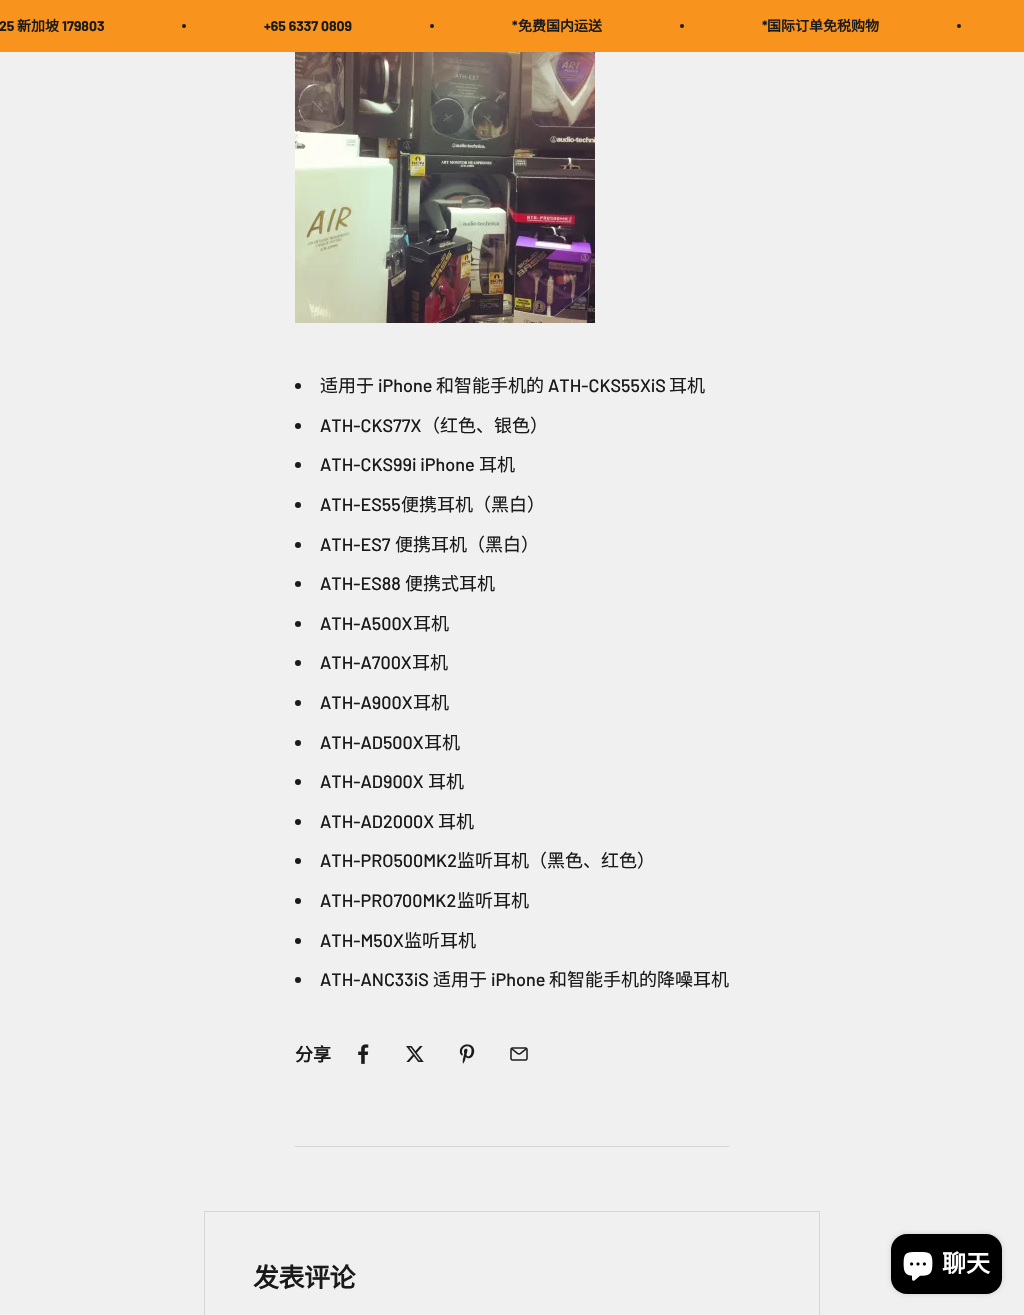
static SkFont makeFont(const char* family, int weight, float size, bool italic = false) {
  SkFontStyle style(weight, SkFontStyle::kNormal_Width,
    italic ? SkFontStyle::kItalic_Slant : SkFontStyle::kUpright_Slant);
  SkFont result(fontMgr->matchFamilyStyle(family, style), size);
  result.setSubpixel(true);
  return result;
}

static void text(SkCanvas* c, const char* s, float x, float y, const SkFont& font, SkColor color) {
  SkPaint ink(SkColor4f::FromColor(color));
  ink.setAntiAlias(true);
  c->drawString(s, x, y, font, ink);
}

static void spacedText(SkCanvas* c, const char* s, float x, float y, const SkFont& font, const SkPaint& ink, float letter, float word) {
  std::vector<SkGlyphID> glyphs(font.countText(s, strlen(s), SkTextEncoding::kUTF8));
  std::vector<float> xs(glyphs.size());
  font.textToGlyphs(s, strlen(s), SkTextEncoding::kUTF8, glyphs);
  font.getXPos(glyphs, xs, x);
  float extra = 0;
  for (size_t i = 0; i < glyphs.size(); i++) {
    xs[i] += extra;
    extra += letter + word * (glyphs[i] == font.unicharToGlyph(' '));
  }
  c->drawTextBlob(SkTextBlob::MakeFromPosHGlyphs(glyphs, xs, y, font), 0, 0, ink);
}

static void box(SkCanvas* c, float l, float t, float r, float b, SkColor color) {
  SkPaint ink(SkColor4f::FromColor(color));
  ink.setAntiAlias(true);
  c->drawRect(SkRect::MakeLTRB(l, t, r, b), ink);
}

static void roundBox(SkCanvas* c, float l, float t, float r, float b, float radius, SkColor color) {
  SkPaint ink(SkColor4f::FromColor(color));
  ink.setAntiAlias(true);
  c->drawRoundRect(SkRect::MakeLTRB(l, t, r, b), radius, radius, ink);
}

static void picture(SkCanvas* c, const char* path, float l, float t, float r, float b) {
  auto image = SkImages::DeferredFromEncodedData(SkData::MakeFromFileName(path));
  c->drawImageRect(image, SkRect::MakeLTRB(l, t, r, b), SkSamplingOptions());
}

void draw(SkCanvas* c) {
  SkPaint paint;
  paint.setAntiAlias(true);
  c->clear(0xfff0f0f0);
  box(c, 0, 0, 1024, 52, 0xfff8931d);
  SkFont face1 = makeFont("Barlow", 700, 14);
  text(c, "25", -1, 31, face1, 0xff1a1a1a);
  SkFont face2 = makeFont("Noto Sans CJK SC", 700, 14);
  text(c, "新加坡", 17, 31, face2, 0xff1a1a1a);
  text(c, "179803", 62, 31, face1, 0xff1a1a1a);
  paint.setColor(0xff1a1a1a);
  c->drawCircle(184, 26, 2, paint);
  text(c, "+65 6337 0809", 264, 31, face1, 0xff1a1a1a);
  c->drawCircle(432, 26, 2, paint);
  text(c, "*", 512, 31, face1, 0xff1a1a1a);
  text(c, "免费国内运送", 518, 31, face2, 0xff1a1a1a);
  c->drawCircle(682, 26, 2, paint);
  text(c, "*", 762, 31, face1, 0xff1a1a1a);
  text(c, "国际订单免税购物", 767, 31, face2, 0xff1a1a1a);
  c->drawCircle(959, 26, 2, paint);
  box(c, 295, 1146, 729, 1147, 0xffd6d6d6);
  picture(c, "img_01.png", 295, 52, 595, 323);
  c->drawCircle(298, 386, 3, paint);
  SkFont face3 = makeFont("Noto Sans CJK SC", 400, 18);
  text(c, "适用于", 320, 392, face3, 0xff1a1a1a);
  SkFont face4 = makeFont("Barlow", 500, 18);
  text(c, "iPhone", 378, 392, face4, 0xff1a1a1a);
  text(c, "和智能手机的", 436, 392, face3, 0xff1a1a1a);
  text(c, "ATH-CKS55XiS", 548, 392, face4, 0xff1a1a1a);
  text(c, "耳机", 669, 392, face3, 0xff1a1a1a);
  c->drawCircle(298, 426, 3, paint);
  text(c, "ATH-CKS77X", 320, 432, face4, 0xff1a1a1a);
  text(c, "（红色、银色）", 422, 432, face3, 0xff1a1a1a);
  c->drawCircle(298, 465, 3, paint);
  text(c, "ATH-CKS99i iPhone", 320, 471, face4, 0xff1a1a1a);
  text(c, "耳机", 479, 471, face3, 0xff1a1a1a);
  c->drawCircle(298, 505, 3, paint);
  text(c, "ATH-ES55", 320, 511, face4, 0xff1a1a1a);
  text(c, "便携耳机（黑白）", 401, 511, face3, 0xff1a1a1a);
  c->drawCircle(298, 545, 3, paint);
  text(c, "ATH-ES7", 320, 551, face4, 0xff1a1a1a);
  text(c, "便携耳机（黑白）", 395, 551, face3, 0xff1a1a1a);
  c->drawCircle(298, 584, 3, paint);
  text(c, "ATH-ES88", 320, 590, face4, 0xff1a1a1a);
  text(c, "便携式耳机", 405, 590, face3, 0xff1a1a1a);
  c->drawCircle(298, 624, 3, paint);
  text(c, "ATH-A500X", 320, 630, face4, 0xff1a1a1a);
  text(c, "耳机", 413, 630, face3, 0xff1a1a1a);
  c->drawCircle(298, 663, 3, paint);
  text(c, "ATH-A700X", 320, 669, face4, 0xff1a1a1a);
  text(c, "耳机", 412, 669, face3, 0xff1a1a1a);
  c->drawCircle(298, 703, 3, paint);
  text(c, "ATH-A900X", 320, 709, face4, 0xff1a1a1a);
  text(c, "耳机", 413, 709, face3, 0xff1a1a1a);
  c->drawCircle(298, 743, 3, paint);
  text(c, "ATH-AD500X", 320, 749, face4, 0xff1a1a1a);
  text(c, "耳机", 424, 749, face3, 0xff1a1a1a);
  c->drawCircle(298, 782, 3, paint);
  text(c, "ATH-AD900X", 320, 788, face4, 0xff1a1a1a);
  text(c, "耳机", 428, 788, face3, 0xff1a1a1a);
  c->drawCircle(298, 822, 3, paint);
  text(c, "ATH-AD2000X", 320, 828, face4, 0xff1a1a1a);
  text(c, "耳机", 438, 828, face3, 0xff1a1a1a);
  c->drawCircle(298, 861, 3, paint);
  text(c, "ATH-PRO500MK2", 320, 867, face4, 0xff1a1a1a);
  text(c, "监听耳机（黑色、红色）", 457, 867, face3, 0xff1a1a1a);
  c->drawCircle(298, 901, 3, paint);
  text(c, "ATH-PRO700MK2", 320, 907, face4, 0xff1a1a1a);
  text(c, "监听耳机", 457, 907, face3, 0xff1a1a1a);
  c->drawCircle(298, 941, 3, paint);
  text(c, "ATH-M50X", 320, 947, face4, 0xff1a1a1a);
  text(c, "监听耳机", 404, 947, face3, 0xff1a1a1a);
  c->drawCircle(298, 980, 3, paint);
  text(c, "ATH-ANC33iS", 320, 986, face4, 0xff1a1a1a);
  text(c, "适用于", 433, 986, face3, 0xff1a1a1a);
  text(c, "iPhone", 491, 986, face4, 0xff1a1a1a);
  text(c, "和智能手机的降噪耳机", 549, 986, face3, 0xff1a1a1a);
  SkFont face5 = makeFont("Noto Sans CJK SC", 700, 18);
  text(c, "分享", 295, 1061, face5, 0xff1a1a1a);
  picture(c, "img_02.png", 358, 1044, 369, 1064);
  picture(c, "img_03.png", 406, 1046, 424, 1062);
  picture(c, "img_04.png", 459, 1044, 475, 1064);
  picture(c, "img_05.png", 510, 1047, 528, 1061);
  paint.setStyle(SkPaint::kStroke_Style);
  paint.setStrokeWidth(1);
  paint.setColor(0xffd6d6d6);
  c->drawRect(SkRect::MakeLTRB(204.5f, 1211.5f, 819.5f, 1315.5f), paint);
  SkFont face6 = makeFont("Noto Sans CJK SC", 700, 26);
  paint.setStyle(SkPaint::kFill_Style);
  paint.setColor(0xff1a1a1a);
  spacedText(c, "发表评论", 253, 1287, face6, paint, -0.5f, 0);
  paint.setColor(0x26000000);
  paint.setMaskFilter(SkMaskFilter::MakeBlur(kNormal_SkBlurStyle, 2.5f));
  c->drawRoundRect(SkRect::MakeLTRB(891, 1234, 1002, 1294), 16, 16, paint);
  paint.setMaskFilter(nullptr);
  roundBox(c, 891, 1234, 1002, 1294, 16, 0xff000000);
  picture(c, "img_06.png", 903, 1252, 933, 1281);
  SkFont face7 = makeFont("Noto Sans CJK SC", 700, 24);
  text(c, "聊天", 942, 1272, face7, 0xffffffff);
}
